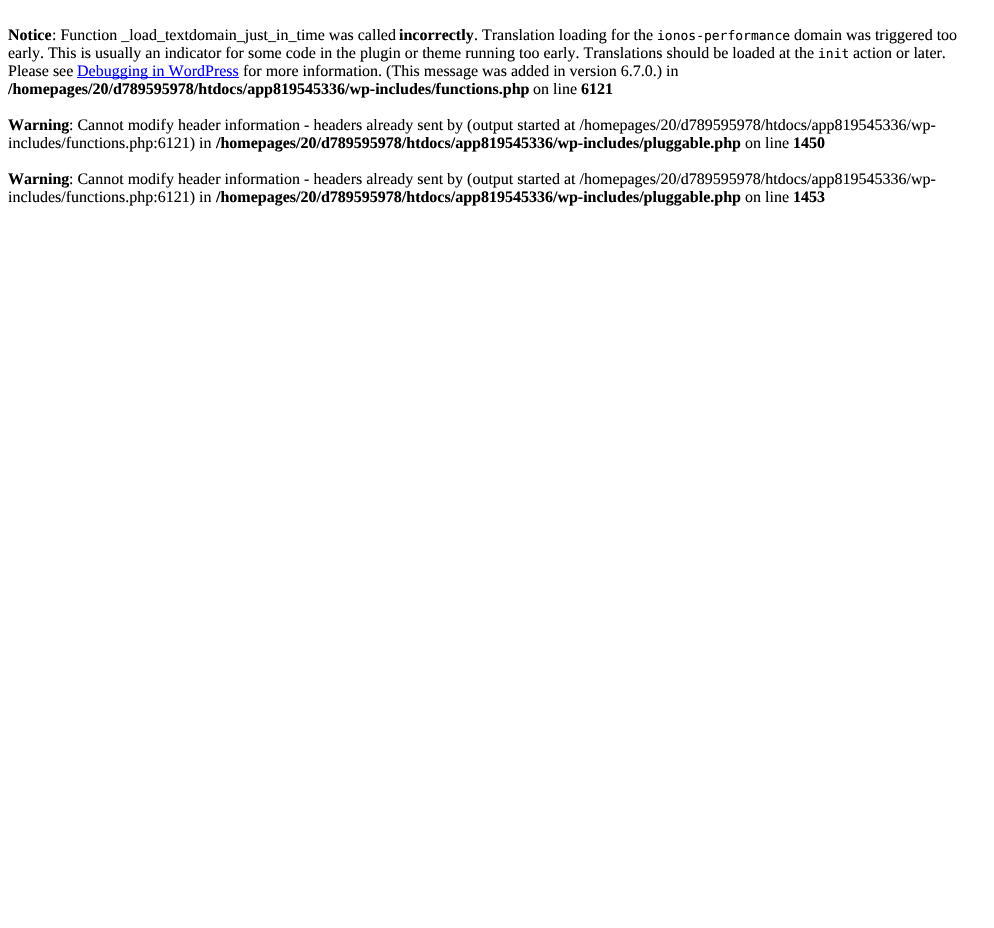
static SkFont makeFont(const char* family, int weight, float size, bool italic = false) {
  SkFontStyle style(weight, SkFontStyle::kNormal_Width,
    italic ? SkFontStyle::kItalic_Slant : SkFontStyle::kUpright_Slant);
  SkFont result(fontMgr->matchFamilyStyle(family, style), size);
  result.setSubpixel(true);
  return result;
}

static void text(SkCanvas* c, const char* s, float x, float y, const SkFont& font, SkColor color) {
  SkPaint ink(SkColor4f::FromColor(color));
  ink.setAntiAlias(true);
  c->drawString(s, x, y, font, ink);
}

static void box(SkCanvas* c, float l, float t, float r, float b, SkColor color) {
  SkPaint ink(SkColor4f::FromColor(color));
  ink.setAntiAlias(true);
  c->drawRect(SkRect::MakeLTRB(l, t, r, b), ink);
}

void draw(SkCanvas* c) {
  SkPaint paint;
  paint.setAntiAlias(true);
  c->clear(0xffffffff);
  SkFont face1 = makeFont("Liberation Serif", 700, 16);
  text(c, "Notice", 8, 40, face1, 0xff000000);
  SkFont face2 = makeFont("Liberation Serif", 400, 16);
  text(c, ": Function _load_textdomain_just_in_time was called", 52, 40, face2, 0xff000000);
  text(c, "incorrectly", 399, 40, face1, 0xff000000);
  text(c, ". Translation loading for the", 474, 40, face2, 0xff000000);
  SkFont face3 = makeFont("DejaVu Sans Mono", 400, 13);
  text(c, "ionos-performance", 657, 40, face3, 0xff000000);
  text(c, "domain was triggered too", 794, 40, face2, 0xff000000);
  text(c, "early. This is usually an indicator for some code in the plugin or theme running too early. Translations should be loaded at the", 8, 58, face2, 0xff000000);
  text(c, "init", 818, 58, face3, 0xff000000);
  text(c, "action or later.", 853, 58, face2, 0xff000000);
  text(c, "Please see", 8, 76, face2, 0xff000000);
  box(c, 77, 77, 239, 78, 0xff0000ee);
  text(c, "Debugging in WordPress", 77, 76, face2, 0xff0000ee);
  text(c, "for more information. (This message was added in version 6.7.0.) in", 243, 76, face2, 0xff000000);
  text(c, "/homepages/20/d789595978/htdocs/app819545336/wp-includes/functions.php", 8, 94, face1, 0xff000000);
  text(c, "on line", 533, 94, face2, 0xff000000);
  text(c, "6121", 581, 94, face1, 0xff000000);
  text(c, "Warning", 8, 130, face1, 0xff000000);
  text(c, ": Cannot modify header information - headers already sent by (output started at /homepages/20/d789595978/htdocs/app819545336/wp-", 69, 130, face2, 0xff000000);
  text(c, "includes/functions.php:6121) in", 8, 148, face2, 0xff000000);
  text(c, "/homepages/20/d789595978/htdocs/app819545336/wp-includes/pluggable.php", 216, 148, face1, 0xff000000);
  text(c, "on line", 745, 148, face2, 0xff000000);
  text(c, "1450", 793, 148, face1, 0xff000000);
  text(c, "Warning", 8, 184, face1, 0xff000000);
  text(c, ": Cannot modify header information - headers already sent by (output started at /homepages/20/d789595978/htdocs/app819545336/wp-", 69, 184, face2, 0xff000000);
  text(c, "includes/functions.php:6121) in", 8, 202, face2, 0xff000000);
  text(c, "/homepages/20/d789595978/htdocs/app819545336/wp-includes/pluggable.php", 216, 202, face1, 0xff000000);
  text(c, "on line", 745, 202, face2, 0xff000000);
  text(c, "1453", 793, 202, face1, 0xff000000);
}
